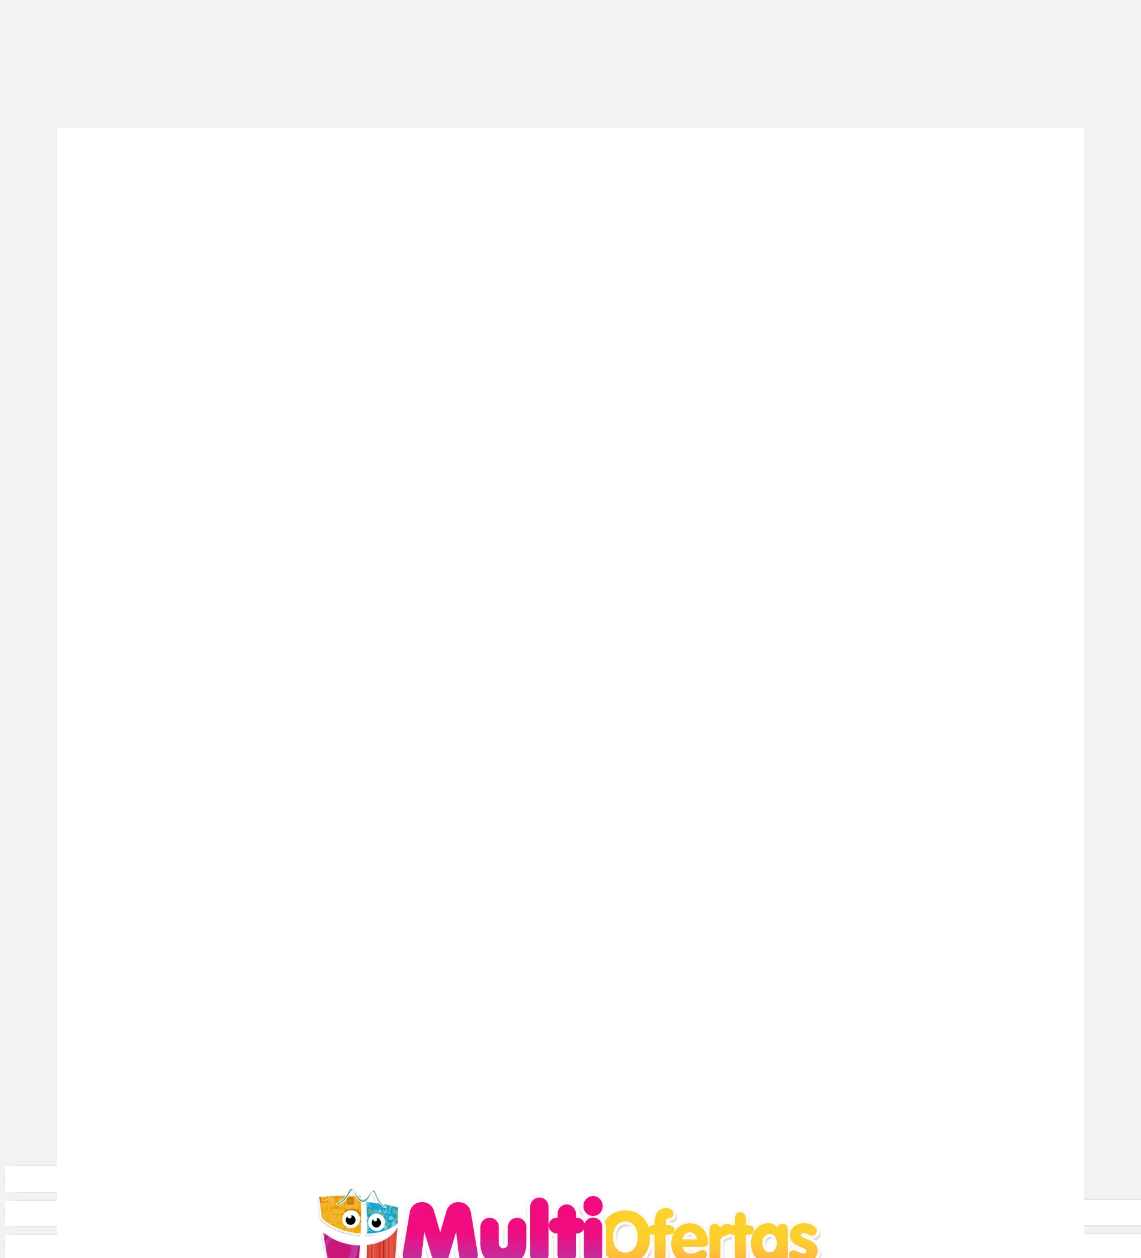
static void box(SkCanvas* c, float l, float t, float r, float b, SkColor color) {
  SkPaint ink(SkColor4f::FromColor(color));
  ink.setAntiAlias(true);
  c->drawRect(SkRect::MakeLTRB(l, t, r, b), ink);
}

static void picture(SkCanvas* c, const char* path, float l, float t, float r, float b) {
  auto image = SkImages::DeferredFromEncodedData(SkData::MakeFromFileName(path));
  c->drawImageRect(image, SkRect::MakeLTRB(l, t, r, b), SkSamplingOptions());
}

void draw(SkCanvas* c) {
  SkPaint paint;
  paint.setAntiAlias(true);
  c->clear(0xfff2f2f2);
  paint.setColor(0x33000000);
  paint.setMaskFilter(SkMaskFilter::MakeBlur(kNormal_SkBlurStyle, 1));
  c->drawRoundRect(SkRect::MakeLTRB(5, 1166, 93, 1192), 13, 13, paint);
  paint.setMaskFilter(nullptr);
  paint.setMaskFilter(SkMaskFilter::MakeBlur(kNormal_SkBlurStyle, 1));
  c->drawRoundRect(SkRect::MakeLTRB(5, 1201, 93, 1226), 12.5f, 12.5f, paint);
  paint.setMaskFilter(nullptr);
  paint.setMaskFilter(SkMaskFilter::MakeBlur(kNormal_SkBlurStyle, 1));
  c->drawRoundRect(SkRect::MakeLTRB(5, 1235, 93, 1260), 12.5f, 12.5f, paint);
  paint.setMaskFilter(nullptr);
  paint.setMaskFilter(SkMaskFilter::MakeBlur(kNormal_SkBlurStyle, 1));
  c->drawRoundRect(SkRect::MakeLTRB(1048, 1200, 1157, 1225), 12.5f, 12.5f, paint);
  paint.setMaskFilter(nullptr);
  paint.setMaskFilter(SkMaskFilter::MakeBlur(kNormal_SkBlurStyle, 1));
  c->drawRoundRect(SkRect::MakeLTRB(1048, 1234, 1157, 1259), 12.5f, 12.5f, paint);
  paint.setMaskFilter(nullptr);
  box(c, 57, 128, 1084, 1258, 0xffffffff);
  picture(c, "img_01.png", 317, 1188, 822, 1258);
  box(c, 5, 1166, 57, 1192, 0xffffffff);
  box(c, 5, 1201, 57, 1226, 0xffffffff);
  box(c, 5, 1235, 57, 1258, 0xffffffff);
  box(c, 1084, 1200, 1141, 1225, 0xffffffff);
  box(c, 1084, 1234, 1141, 1258, 0xffffffff);
}
